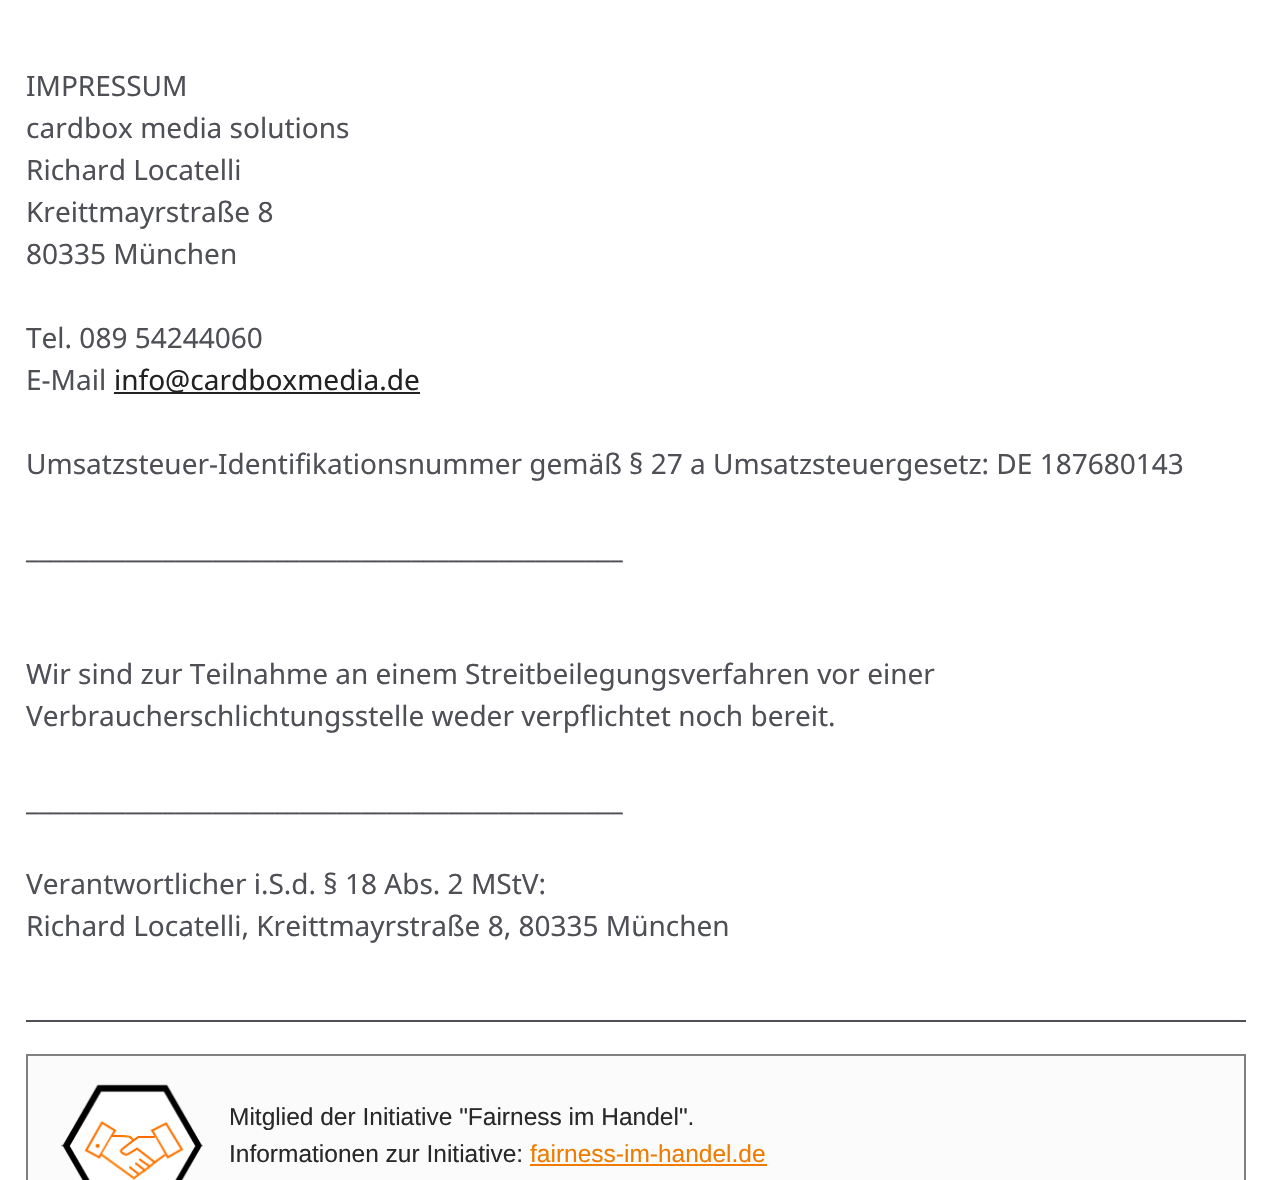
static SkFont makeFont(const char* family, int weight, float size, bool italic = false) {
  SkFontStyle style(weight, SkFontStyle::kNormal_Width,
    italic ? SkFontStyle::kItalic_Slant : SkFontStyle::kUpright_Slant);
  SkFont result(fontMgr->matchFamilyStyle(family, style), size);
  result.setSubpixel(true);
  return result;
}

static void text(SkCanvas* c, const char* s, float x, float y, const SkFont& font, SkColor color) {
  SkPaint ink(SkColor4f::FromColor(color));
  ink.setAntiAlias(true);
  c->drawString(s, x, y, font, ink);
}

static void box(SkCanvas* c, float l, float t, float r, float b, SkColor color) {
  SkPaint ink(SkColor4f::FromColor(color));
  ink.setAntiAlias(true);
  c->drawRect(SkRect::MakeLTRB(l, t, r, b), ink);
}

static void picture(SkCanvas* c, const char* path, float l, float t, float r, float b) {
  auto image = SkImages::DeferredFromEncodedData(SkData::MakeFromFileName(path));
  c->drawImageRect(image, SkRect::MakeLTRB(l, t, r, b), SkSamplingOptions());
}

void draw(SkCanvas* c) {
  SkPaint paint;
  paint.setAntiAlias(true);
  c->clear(0xffffffff);
  SkFont face1 = makeFont("Noto Sans", 400, 28);
  text(c, "IMPRESSUM", 26, 96, face1, 0xff4e5056);
  text(c, "cardbox media solutions", 26, 138, face1, 0xff4e5056);
  text(c, "Richard Locatelli", 26, 180, face1, 0xff4e5056);
  text(c, "Kreittmayrstraße 8", 26, 222, face1, 0xff4e5056);
  text(c, "80335 München", 26, 264, face1, 0xff4e5056);
  text(c, "Tel. 089 54244060", 26, 348, face1, 0xff4e5056);
  text(c, "E-Mail", 26, 390, face1, 0xff4e5056);
  box(c, 114, 392, 420, 394, 0xff222222);
  text(c, "info@cardboxmedia.de", 114, 390, face1, 0xff222222);
  text(c, "Umsatzsteuer-Identifikationsnummer gemäß § 27 a Umsatzsteuergesetz: DE 187680143", 26, 474, face1, 0xff4e5056);
  text(c, "________________________________________________", 26, 558, face1, 0xff4e5056);
  text(c, "Wir sind zur Teilnahme an einem Streitbeilegungsverfahren vor einer", 26, 684, face1, 0xff4e5056);
  text(c, "Verbraucherschlichtungsstelle weder verpflichtet noch bereit.", 26, 726, face1, 0xff4e5056);
  text(c, "________________________________________________", 26, 810, face1, 0xff4e5056);
  text(c, "Verantwortlicher i.S.d. § 18 Abs. 2 MStV:", 26, 894, face1, 0xff4e5056);
  text(c, "Richard Locatelli, Kreittmayrstraße 8, 80335 München", 26, 936, face1, 0xff4e5056);
  box(c, 26, 1020, 1246, 1022, 0xff4e5056);
  paint.setColor(0xfffbfbfb);
  c->drawRect(SkRect::MakeLTRB(27, 1055, 1245, 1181), paint);
  paint.setStyle(SkPaint::kStroke_Style);
  paint.setStrokeWidth(2);
  paint.setColor(0xff808080);
  c->drawRect(SkRect::MakeLTRB(27, 1055, 1245, 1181), paint);
  picture(c, "img_01.png", 61, 1084, 203, 1180);
  SkFont face2 = makeFont("Liberation Sans", 400, 24.5f);
  text(c, "Mitglied der Initiative \"Fairness im Handel\".", 229, 1125, face2, 0xff292929);
  text(c, "Informationen zur Initiative:", 229, 1162, face2, 0xff292929);
  text(c, "fairness-im-handel.de", 530, 1162, face2, 0xffef7b00);
  box(c, 530, 1164, 767, 1166, 0xffef7b00);
}
